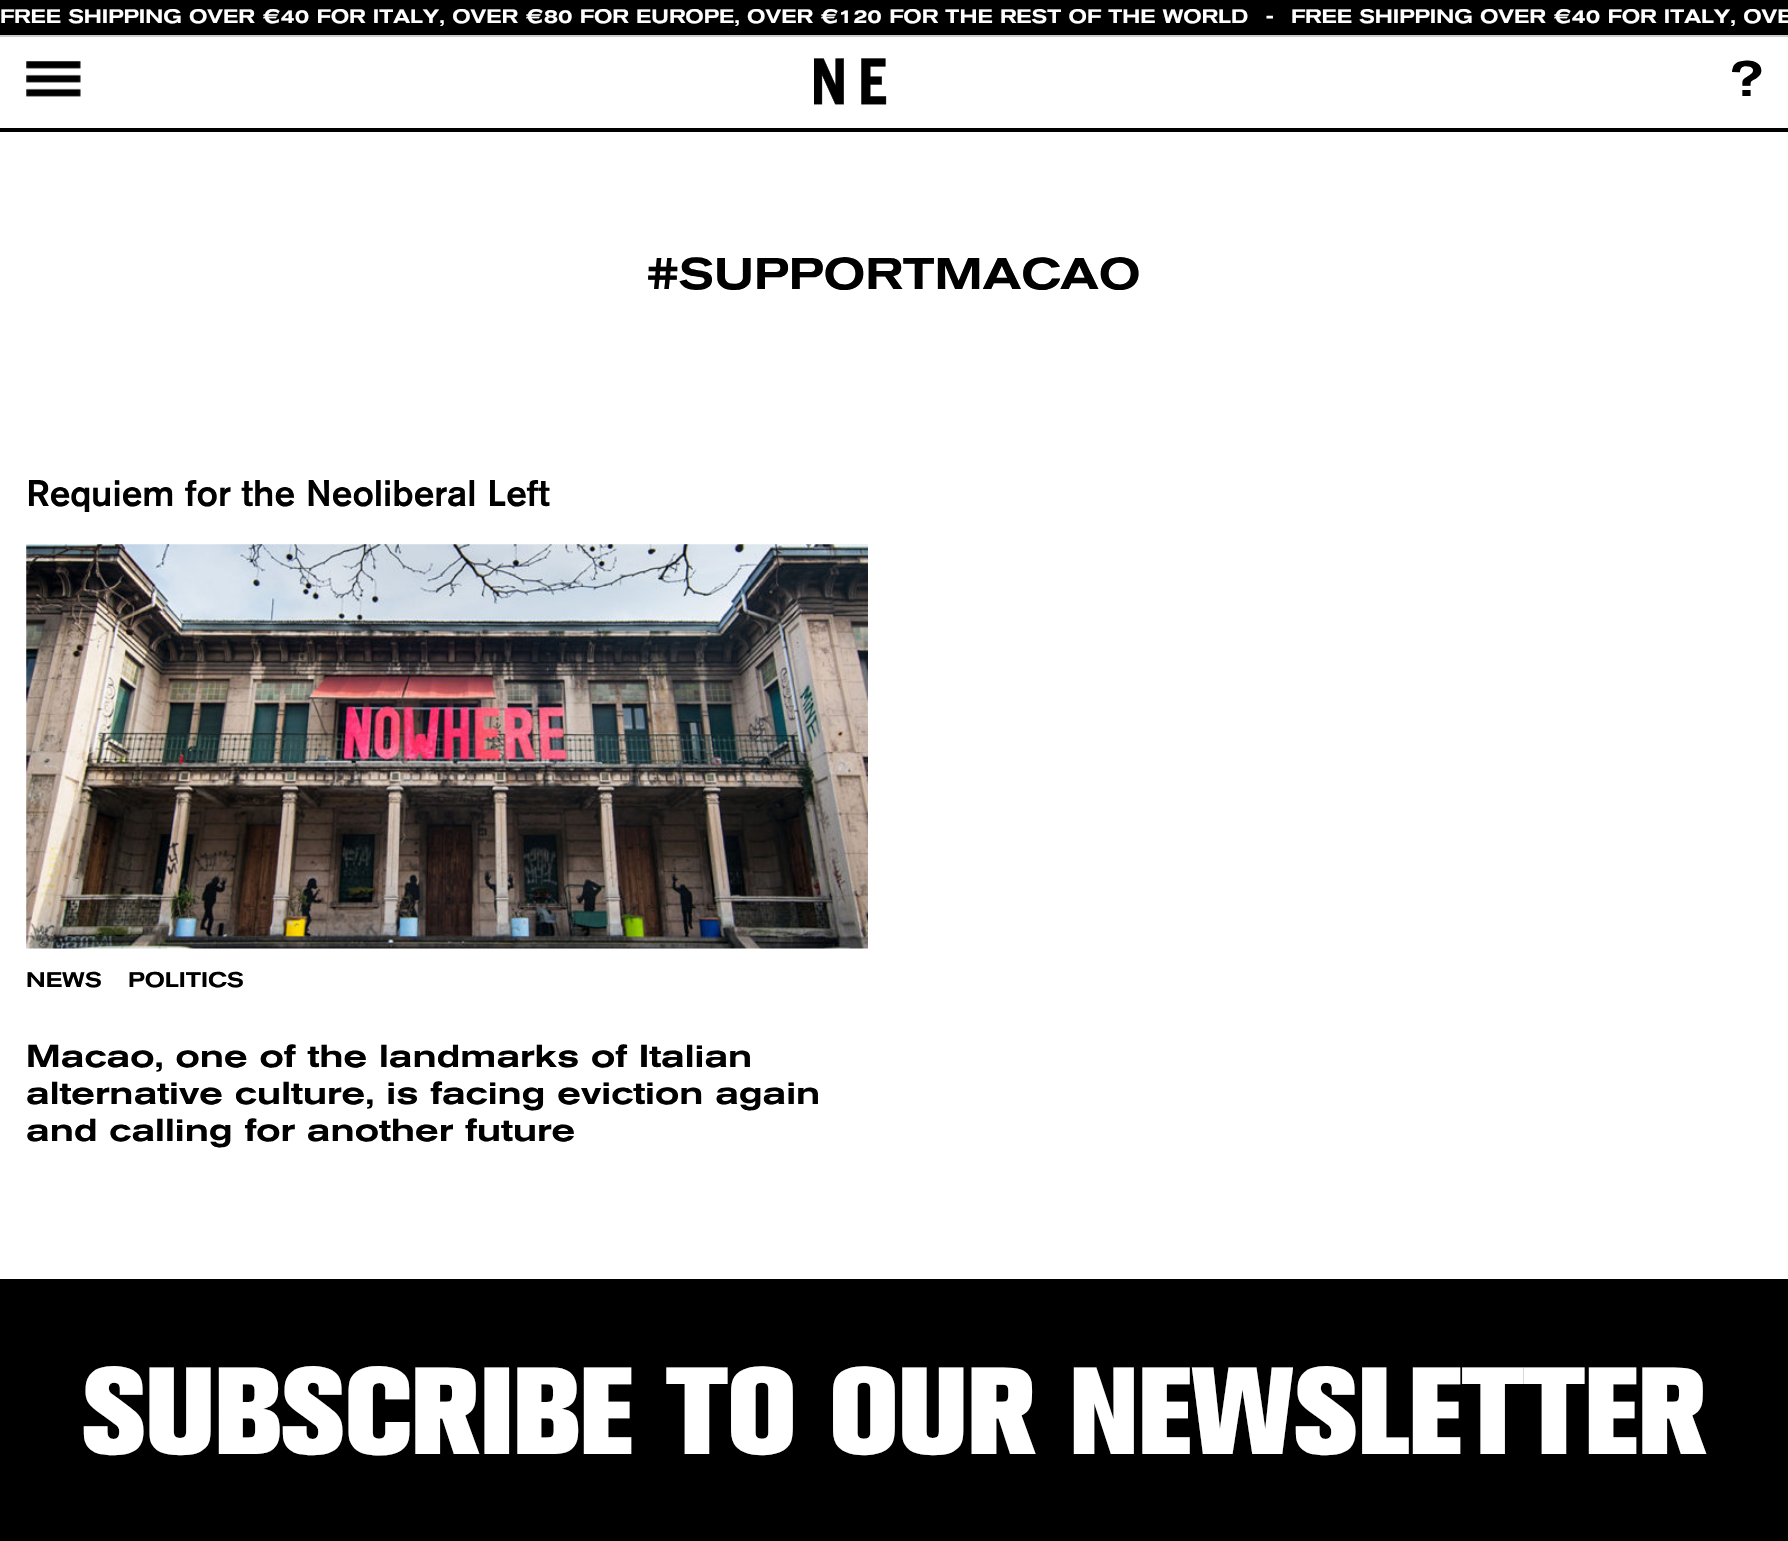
static SkFont makeFont(const char* family, int weight, float size, bool italic = false) {
  SkFontStyle style(weight, SkFontStyle::kNormal_Width,
    italic ? SkFontStyle::kItalic_Slant : SkFontStyle::kUpright_Slant);
  SkFont result(fontMgr->matchFamilyStyle(family, style), size);
  result.setSubpixel(true);
  return result;
}

static void text(SkCanvas* c, const char* s, float x, float y, const SkFont& font, SkColor color) {
  SkPaint ink(SkColor4f::FromColor(color));
  ink.setAntiAlias(true);
  c->drawString(s, x, y, font, ink);
}

static void box(SkCanvas* c, float l, float t, float r, float b, SkColor color) {
  SkPaint ink(SkColor4f::FromColor(color));
  ink.setAntiAlias(true);
  c->drawRect(SkRect::MakeLTRB(l, t, r, b), ink);
}

static void picture(SkCanvas* c, const char* path, float l, float t, float r, float b) {
  auto image = SkImages::DeferredFromEncodedData(SkData::MakeFromFileName(path));
  c->drawImageRect(image, SkRect::MakeLTRB(l, t, r, b), SkSamplingOptions());
}

void draw(SkCanvas* c) {
  SkPaint paint;
  paint.setAntiAlias(true);
  c->clear(0xffffffff);
  box(c, 0, 128, 1788, 132, 0xff000000);
  box(c, 0, 0, 1788, 35, 0xff000000);
  box(c, 0, 35, 1788, 37, 0xffcccccc);
  SkFont face1 = makeFont("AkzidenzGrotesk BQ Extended", 500, 19.25f);
  text(c, "FREE SHIPPING OVER €40 FOR ITALY, OVER €80 FOR EUROPE, OVER €120 FOR THE REST OF THE WORLD", 0, 23, face1, 0xffffffff);
  text(c, "-", 1266, 23, face1, 0xffffffff);
  text(c, "FREE SHIPPING OVER €40 FOR ITALY, OVE", 1291, 23, face1, 0xffffffff);
  picture(c, "img_01.png", 26, 61, 81, 97);
  picture(c, "img_02.png", 814, 58, 887, 105);
  SkFont face2 = makeFont("AkzidenzGrotesk BQ Extended", 500, 49);
  text(c, "?", 1729, 96, face2, 0xff000000);
  SkFont face3 = makeFont("AkzidenzGrotesk BQ Extended", 500, 43.75f);
  text(c, "#SUPPORTMACAO", 647, 289, face3, 0xff000000);
  SkFont face4 = makeFont("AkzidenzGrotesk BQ", 500, 36.75f);
  text(c, "Requiem for the Neoliberal Left", 26, 506, face4, 0xff000000);
  picture(c, "img_03.png", 26, 544, 868, 949);
  SkFont face5 = makeFont("AkzidenzGrotesk BQ Extended", 500, 21);
  text(c, "NEWS", 26, 987, face5, 0xff000000);
  text(c, "POLITICS", 128, 987, face5, 0xff000000);
  SkFont face6 = makeFont("AkzidenzGrotesk BQ Extended", 500, 31.5f);
  text(c, "Macao, one of the landmarks of Italian", 26, 1067, face6, 0xff000000);
  text(c, "alternative culture, is facing eviction again", 26, 1104, face6, 0xff000000);
  text(c, "and calling for another future", 26, 1141, face6, 0xff000000);
  box(c, 0, 1279, 1788, 1541, 0xff000000);
  SkFont face7 = makeFont("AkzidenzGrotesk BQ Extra", 700, 122.5f);
  text(c, "SUBSCRIBE TO OUR NEWSLETTER", 82, 1454, face7, 0xffffffff);
}
